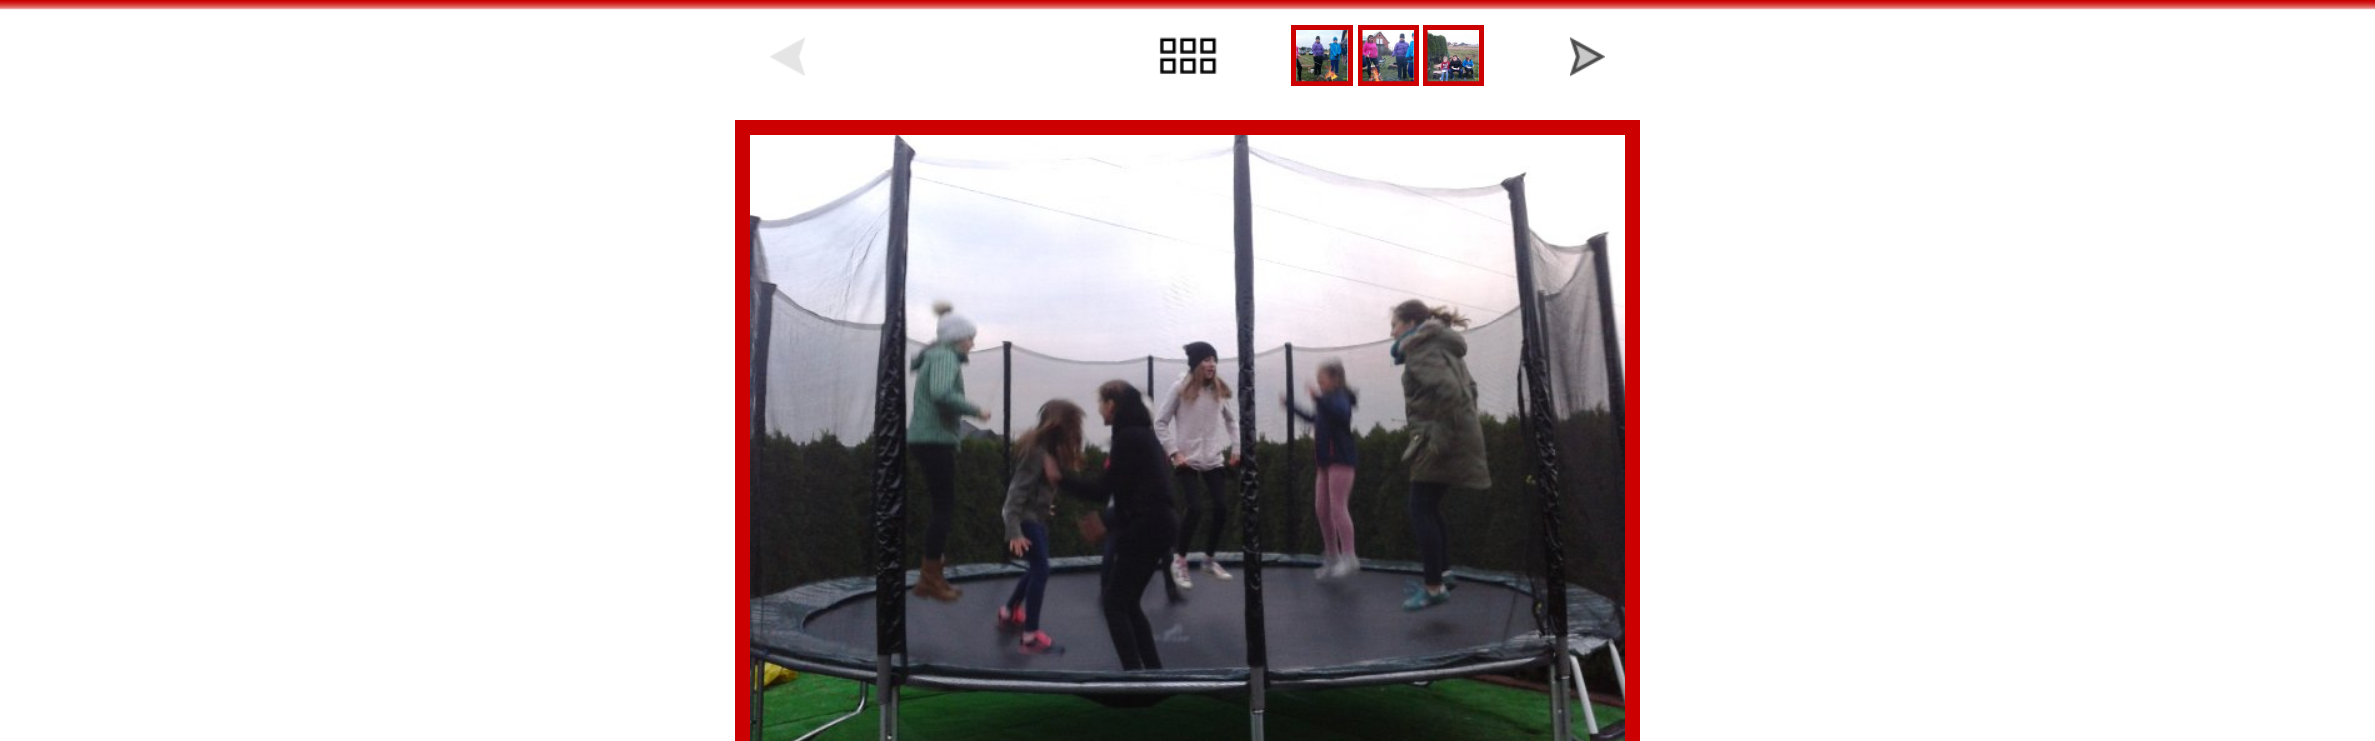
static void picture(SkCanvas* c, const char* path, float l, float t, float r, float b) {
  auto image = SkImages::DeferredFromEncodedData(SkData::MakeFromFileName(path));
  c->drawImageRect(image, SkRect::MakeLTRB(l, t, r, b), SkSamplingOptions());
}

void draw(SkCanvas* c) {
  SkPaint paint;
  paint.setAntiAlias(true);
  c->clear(0xffffffff);
  picture(c, "img_01.png", 0, 0, 2375, 10);
  picture(c, "img_02.png", 770, 37, 805, 76);
  picture(c, "img_03.png", 1159, 37, 1217, 74);
  paint.setStyle(SkPaint::kStroke_Style);
  paint.setStrokeWidth(5);
  paint.setColor(0xffcc0000);
  c->drawRect(SkRect::MakeLTRB(1293.5f, 27.5f, 1350.5f, 83.5f), paint);
  c->drawRect(SkRect::MakeLTRB(1360.5f, 27.5f, 1416.5f, 83.5f), paint);
  c->drawRect(SkRect::MakeLTRB(1425.5f, 27.5f, 1481.5f, 83.5f), paint);
  picture(c, "img_04.png", 1296, 30, 1348, 82);
  picture(c, "img_05.png", 1362, 30, 1414, 82);
  picture(c, "img_06.png", 1427, 30, 1479, 82);
  picture(c, "img_07.png", 1570, 37, 1605, 77);
  paint.setStrokeWidth(15);
  c->drawRect(SkRect::MakeLTRB(742.5f, 127.5f, 1632.5f, 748.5f), paint);
  picture(c, "img_08.png", 750, 135, 1625, 741);
}
